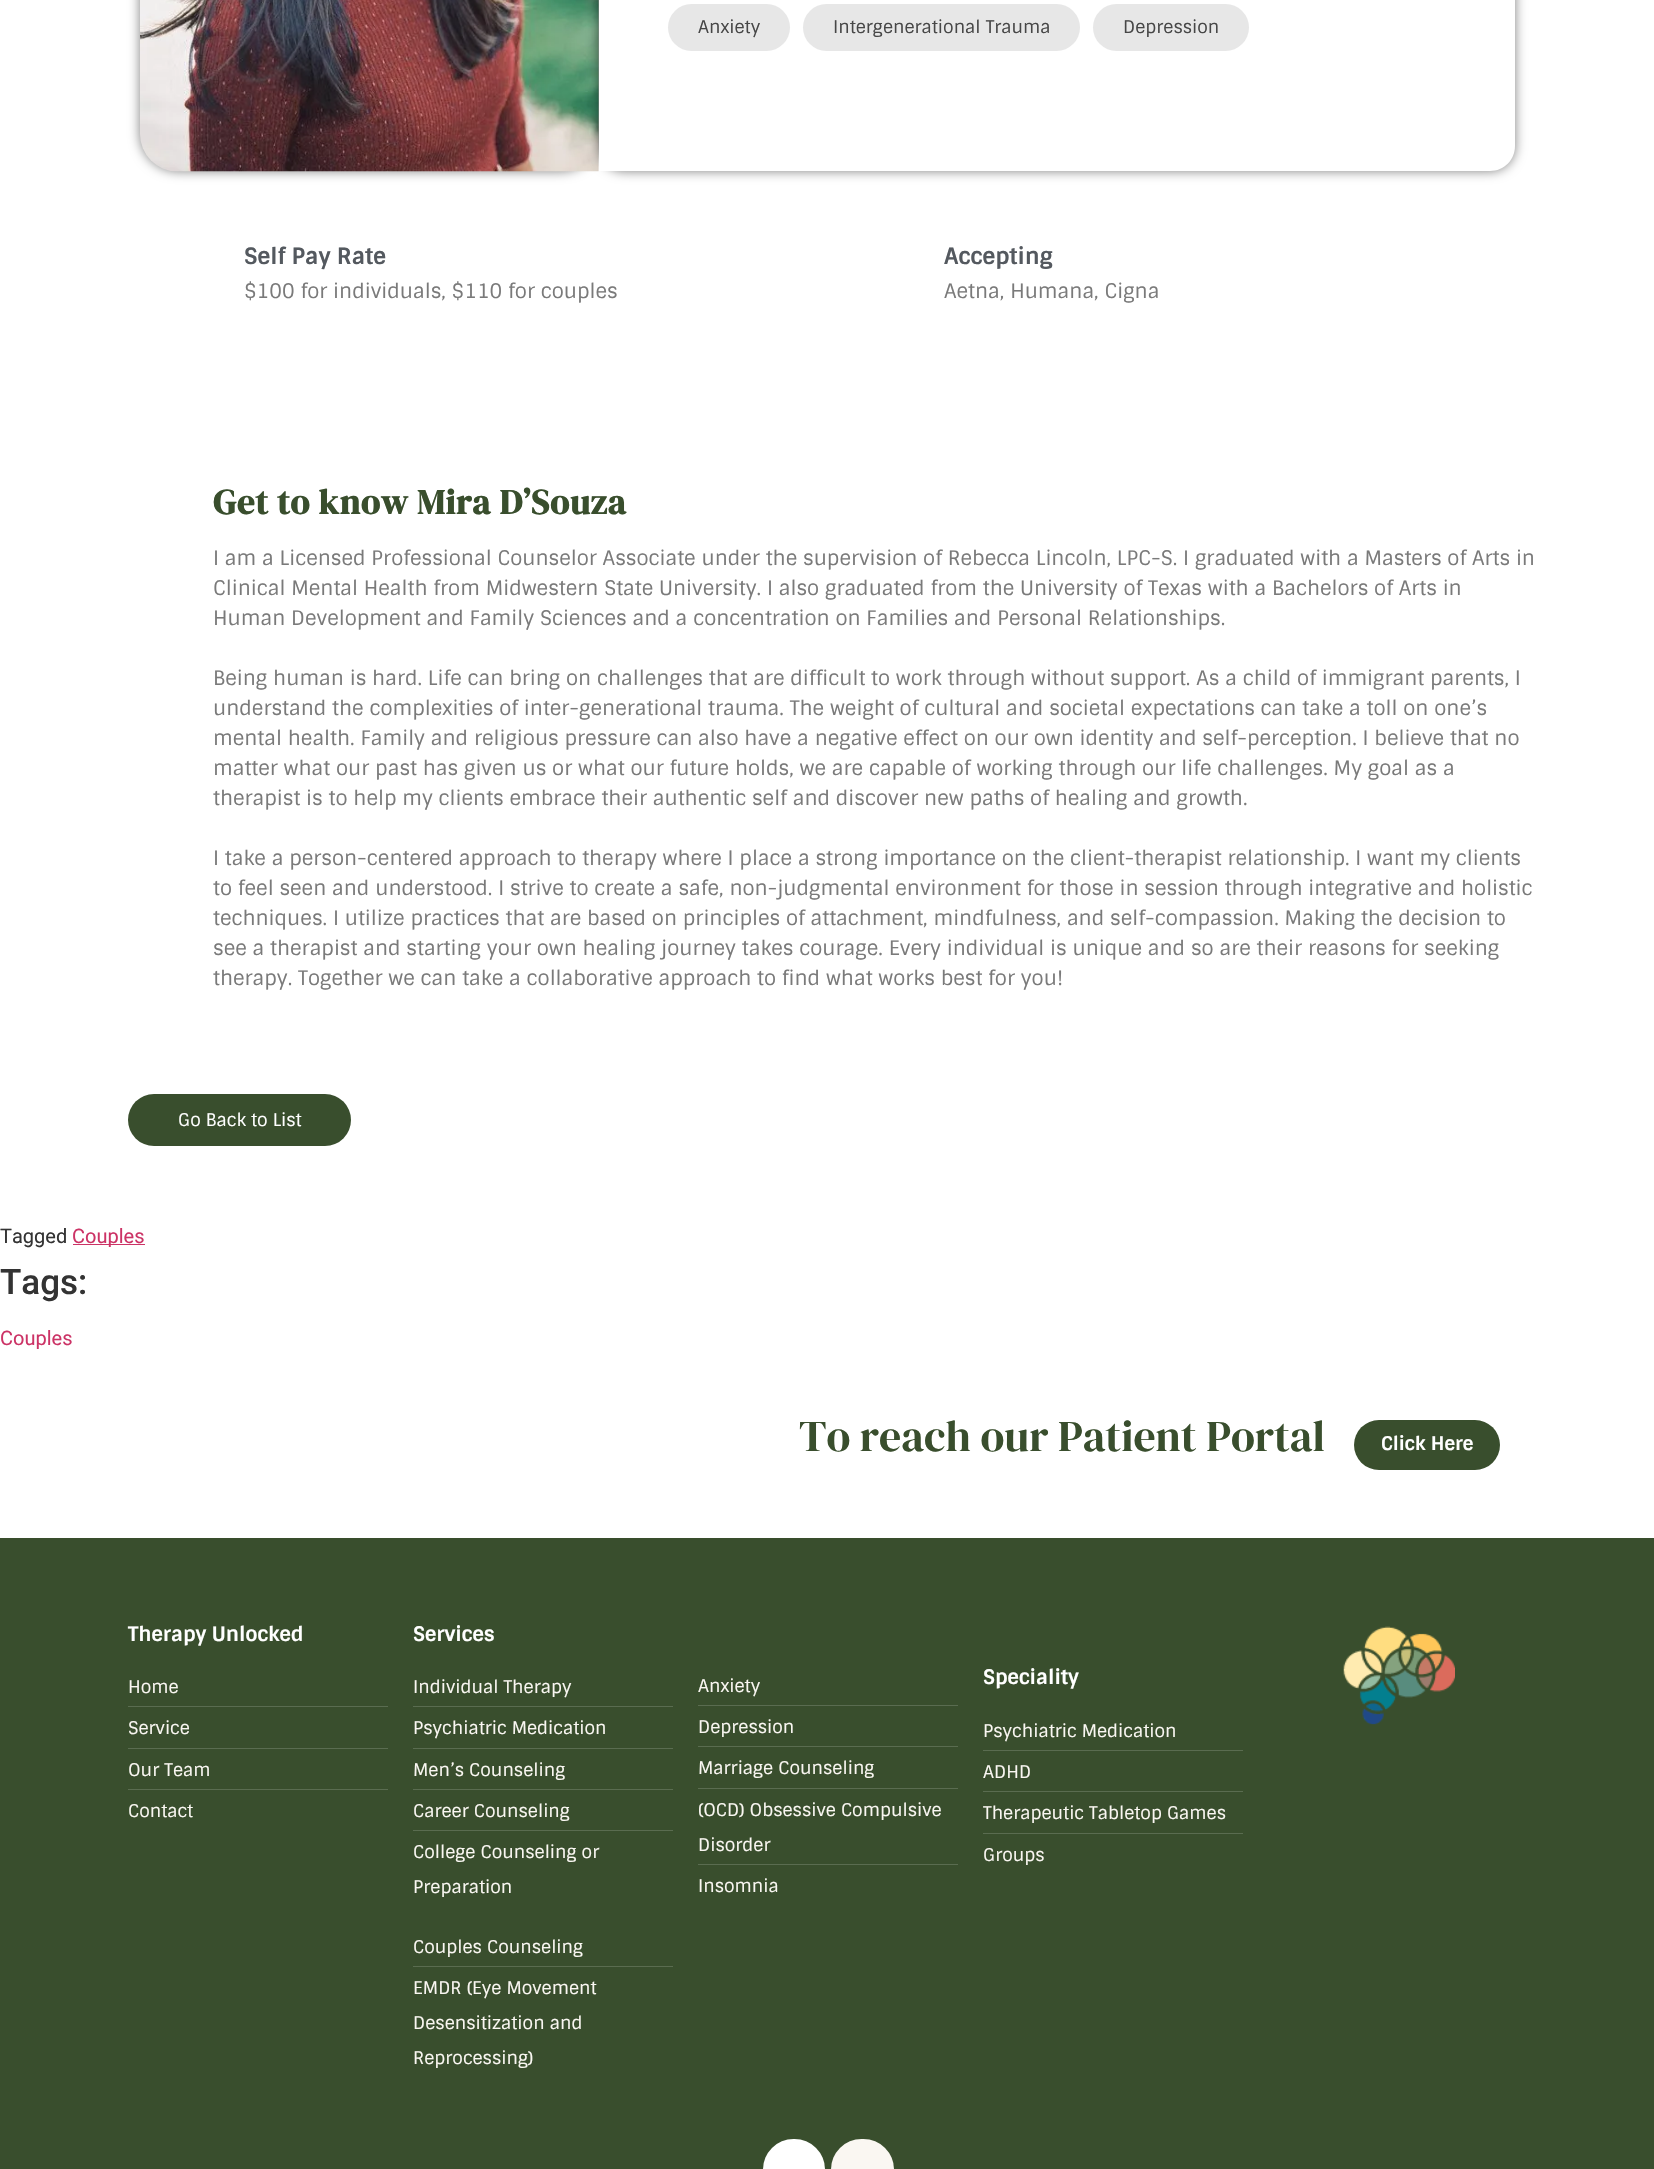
static SkFont makeFont(const char* family, int weight, float size, bool italic = false) {
  SkFontStyle style(weight, SkFontStyle::kNormal_Width,
    italic ? SkFontStyle::kItalic_Slant : SkFontStyle::kUpright_Slant);
  SkFont result(fontMgr->matchFamilyStyle(family, style), size);
  result.setSubpixel(true);
  return result;
}

static void text(SkCanvas* c, const char* s, float x, float y, const SkFont& font, SkColor color) {
  SkPaint ink(SkColor4f::FromColor(color));
  ink.setAntiAlias(true);
  c->drawString(s, x, y, font, ink);
}

static void spacedText(SkCanvas* c, const char* s, float x, float y, const SkFont& font, const SkPaint& ink, float letter, float word) {
  std::vector<SkGlyphID> glyphs(font.countText(s, strlen(s), SkTextEncoding::kUTF8));
  std::vector<float> xs(glyphs.size());
  font.textToGlyphs(s, strlen(s), SkTextEncoding::kUTF8, glyphs);
  font.getXPos(glyphs, xs, x);
  float extra = 0;
  for (size_t i = 0; i < glyphs.size(); i++) {
    xs[i] += extra;
    extra += letter + word * (glyphs[i] == font.unicharToGlyph(' '));
  }
  c->drawTextBlob(SkTextBlob::MakeFromPosHGlyphs(glyphs, xs, y, font), 0, 0, ink);
}

static void box(SkCanvas* c, float l, float t, float r, float b, SkColor color) {
  SkPaint ink(SkColor4f::FromColor(color));
  ink.setAntiAlias(true);
  c->drawRect(SkRect::MakeLTRB(l, t, r, b), ink);
}

static void roundBox(SkCanvas* c, float l, float t, float r, float b, float radius, SkColor color) {
  SkPaint ink(SkColor4f::FromColor(color));
  ink.setAntiAlias(true);
  c->drawRoundRect(SkRect::MakeLTRB(l, t, r, b), radius, radius, ink);
}

static void picture(SkCanvas* c, const char* path, float l, float t, float r, float b) {
  auto image = SkImages::DeferredFromEncodedData(SkData::MakeFromFileName(path));
  c->drawImageRect(image, SkRect::MakeLTRB(l, t, r, b), SkSamplingOptions());
}

void draw(SkCanvas* c) {
  SkPaint paint;
  paint.setAntiAlias(true);
  c->clear(0xffffffff);
  paint.setColor(0x80000000);
  paint.setMaskFilter(SkMaskFilter::MakeBlur(kNormal_SkBlurStyle, 6));
  c->drawRoundRect(SkRect::MakeLTRB(140, -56, 599, 171), 38, 38, paint);
  paint.setMaskFilter(nullptr);
  picture(c, "img_01.png", 140, 0, 599, 172);
  paint.setMaskFilter(SkMaskFilter::MakeBlur(kNormal_SkBlurStyle, 6));
  c->drawRoundRect(SkRect::MakeLTRB(599, -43, 1515, 171), 25, 25, paint);
  paint.setMaskFilter(nullptr);
  paint.setColor(0xffffffff);
  c->drawPath(SkPathBuilder().moveTo(599, -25).lineTo(1490, -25).cubicTo(1504, -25, 1515, -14, 1515, 0).lineTo(1515, 146).cubicTo(1515, 160, 1504, 171, 1490, 171).lineTo(599, 171).close().detach(), paint);
  roundBox(c, 668, 4, 790, 51, 23.5f, 0xffe7e7e7);
  SkFont face1 = makeFont("Sintony", 400, 17.5f);
  text(c, "Anxiety", 698, 33, face1, 0xff474747);
  roundBox(c, 803, 4, 1080, 51, 23.5f, 0xffe7e7e7);
  text(c, "Intergenerational Trauma", 833, 33, face1, 0xff474747);
  roundBox(c, 1093, 4, 1249, 51, 23.5f, 0xffe7e7e7);
  text(c, "Depression", 1123, 33, face1, 0xff474747);
  SkFont face2 = makeFont("Sintony", 700, 22.5f);
  text(c, "Self Pay Rate", 244, 264, face2, 0xff54595f);
  SkFont face3 = makeFont("Sintony", 400, 20);
  text(c, "$100 for individuals, $110 for couples", 244, 298, face3, 0xff7a7a7a);
  text(c, "Accepting", 944, 264, face2, 0xff54595f);
  text(c, "Aetna, Humana, Cigna", 944, 298, face3, 0xff7a7a7a);
  SkFont face4 = makeFont("DM Serif Display", 700, 35);
  paint.setColor(0xff394e2d);
  spacedText(c, "Get to know Mira D’Souza", 213, 514, face4, paint, 0.75f, 0);
  text(c, "I am a Licensed Professional Counselor Associate under the supervision of Rebecca Lincoln, LPC-S. I graduated with a Masters of Arts in", 213, 565, face3, 0xff7a7a7a);
  text(c, "Clinical Mental Health from Midwestern State University. I also graduated from the University of Texas with a Bachelors of Arts in", 213, 595, face3, 0xff7a7a7a);
  text(c, "Human Development and Family Sciences and a concentration on Families and Personal Relationships.", 213, 625, face3, 0xff7a7a7a);
  text(c, "Being human is hard. Life can bring on challenges that are difficult to work through without support. As a child of immigrant parents, I", 213, 685, face3, 0xff7a7a7a);
  text(c, "understand the complexities of inter-generational trauma. The weight of cultural and societal expectations can take a toll on one’s", 213, 715, face3, 0xff7a7a7a);
  text(c, "mental health. Family and religious pressure can also have a negative effect on our own identity and self-perception. I believe that no", 213, 745, face3, 0xff7a7a7a);
  text(c, "matter what our past has given us or what our future holds, we are capable of working through our life challenges. My goal as a", 213, 775, face3, 0xff7a7a7a);
  text(c, "therapist is to help my clients embrace their authentic self and discover new paths of healing and growth.", 213, 805, face3, 0xff7a7a7a);
  text(c, "I take a person-centered approach to therapy where I place a strong importance on the client-therapist relationship. I want my clients", 213, 865, face3, 0xff7a7a7a);
  text(c, "to feel seen and understood. I strive to create a safe, non-judgmental environment for those in session through integrative and holistic", 213, 895, face3, 0xff7a7a7a);
  text(c, "techniques. I utilize practices that are based on principles of attachment, mindfulness, and self-compassion. Making the decision to", 213, 925, face3, 0xff7a7a7a);
  text(c, "see a therapist and starting your own healing journey takes courage. Every individual is unique and so are their reasons for seeking", 213, 955, face3, 0xff7a7a7a);
  text(c, "therapy. Together we can take a collaborative approach to find what works best for you!", 213, 985, face3, 0xff7a7a7a);
  roundBox(c, 128, 1094, 351, 1146, 26, 0xff394e2d);
  text(c, "Go Back to List", 178, 1126, face1, 0xffffffff);
  SkFont face5 = makeFont("Roboto", 400, 20);
  text(c, "Tagged", 0, 1243, face5, 0xff333333);
  box(c, 73, 1244, 145, 1245, 0xffcc3366);
  text(c, "Couples", 72, 1243, face5, 0xffcc3366);
  SkFont face6 = makeFont("Roboto", 500, 35);
  text(c, "Tags:", 0, 1294, face6, 0xff333333);
  text(c, "Couples", 0, 1345, face5, 0xffcc3366);
  SkFont face7 = makeFont("DM Serif Display", 400, 43.75f);
  text(c, "To reach our Patient Portal", 799, 1451, face7, 0xff394e2d);
  roundBox(c, 1354, 1420, 1500, 1470, 25, 0xff394e2d);
  SkFont face8 = makeFont("Sintony", 700, 18.75f);
  text(c, "Click Here", 1381, 1450, face8, 0xffffffff);
  box(c, 0, 1538, 1654, 2169, 0xff394e2d);
  SkFont face9 = makeFont("Sintony", 700, 20);
  text(c, "Therapy Unlocked", 128, 1641, face9, 0xffffffff);
  text(c, "Home", 128, 1693, face1, 0xfffaf7f2);
  box(c, 128, 1706, 388, 1707, 0xff5a6c50);
  text(c, "Service", 128, 1734, face1, 0xfffaf7f2);
  box(c, 128, 1748, 388, 1749, 0xff5a6c50);
  text(c, "Our Team", 128, 1776, face1, 0xfffaf7f2);
  box(c, 128, 1789, 388, 1790, 0xff5a6c50);
  text(c, "Contact", 128, 1817, face1, 0xfffaf7f2);
  text(c, "Services", 413, 1641, face9, 0xffffffff);
  text(c, "Individual Therapy", 413, 1693, face1, 0xfffaf7f2);
  box(c, 413, 1706, 673, 1707, 0xff5a6c50);
  text(c, "Psychiatric Medication", 413, 1734, face1, 0xfffaf7f2);
  box(c, 413, 1748, 673, 1749, 0xff5a6c50);
  text(c, "Men’s Counseling", 413, 1776, face1, 0xfffaf7f2);
  box(c, 413, 1789, 673, 1790, 0xff5a6c50);
  text(c, "Career Counseling", 413, 1817, face1, 0xfffaf7f2);
  box(c, 413, 1830, 673, 1831, 0xff5a6c50);
  text(c, "College Counseling or", 413, 1858, face1, 0xfffaf7f2);
  text(c, "Preparation", 413, 1893, face1, 0xfffaf7f2);
  text(c, "Couples Counseling", 413, 1953, face1, 0xfffaf7f2);
  box(c, 413, 1966, 673, 1967, 0xff5a6c50);
  text(c, "EMDR (Eye Movement", 413, 1994, face1, 0xfffaf7f2);
  text(c, "Desensitization and", 413, 2029, face1, 0xfffaf7f2);
  text(c, "Reprocessing)", 413, 2064, face1, 0xfffaf7f2);
  text(c, "Anxiety", 698, 1692, face1, 0xfffaf7f2);
  box(c, 698, 1705, 958, 1706, 0xff5a6c50);
  text(c, "Depression", 698, 1733, face1, 0xfffaf7f2);
  box(c, 698, 1746, 958, 1747, 0xff5a6c50);
  text(c, "Marriage Counseling", 698, 1774, face1, 0xfffaf7f2);
  box(c, 698, 1788, 958, 1789, 0xff5a6c50);
  text(c, "(OCD) Obsessive Compulsive", 698, 1816, face1, 0xfffaf7f2);
  text(c, "Disorder", 698, 1851, face1, 0xfffaf7f2);
  box(c, 698, 1864, 958, 1865, 0xff5a6c50);
  text(c, "Insomnia", 698, 1892, face1, 0xfffaf7f2);
  text(c, "Speciality", 983, 1684, face9, 0xffffffff);
  text(c, "Psychiatric Medication", 983, 1737, face1, 0xfffaf7f2);
  box(c, 983, 1750, 1243, 1751, 0xff5a6c50);
  text(c, "ADHD", 983, 1778, face1, 0xfffaf7f2);
  box(c, 983, 1791, 1243, 1792, 0xff5a6c50);
  text(c, "Therapeutic Tabletop Games", 983, 1819, face1, 0xfffaf7f2);
  box(c, 983, 1833, 1243, 1834, 0xff5a6c50);
  text(c, "Groups", 983, 1861, face1, 0xfffaf7f2);
  picture(c, "img_02.png", 1343, 1626, 1455, 1725);
  roundBox(c, 763, 2139, 825, 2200, 31, 0xffffffff);
  roundBox(c, 831, 2139, 894, 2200, 31, 0xfffaf7f2);
}
